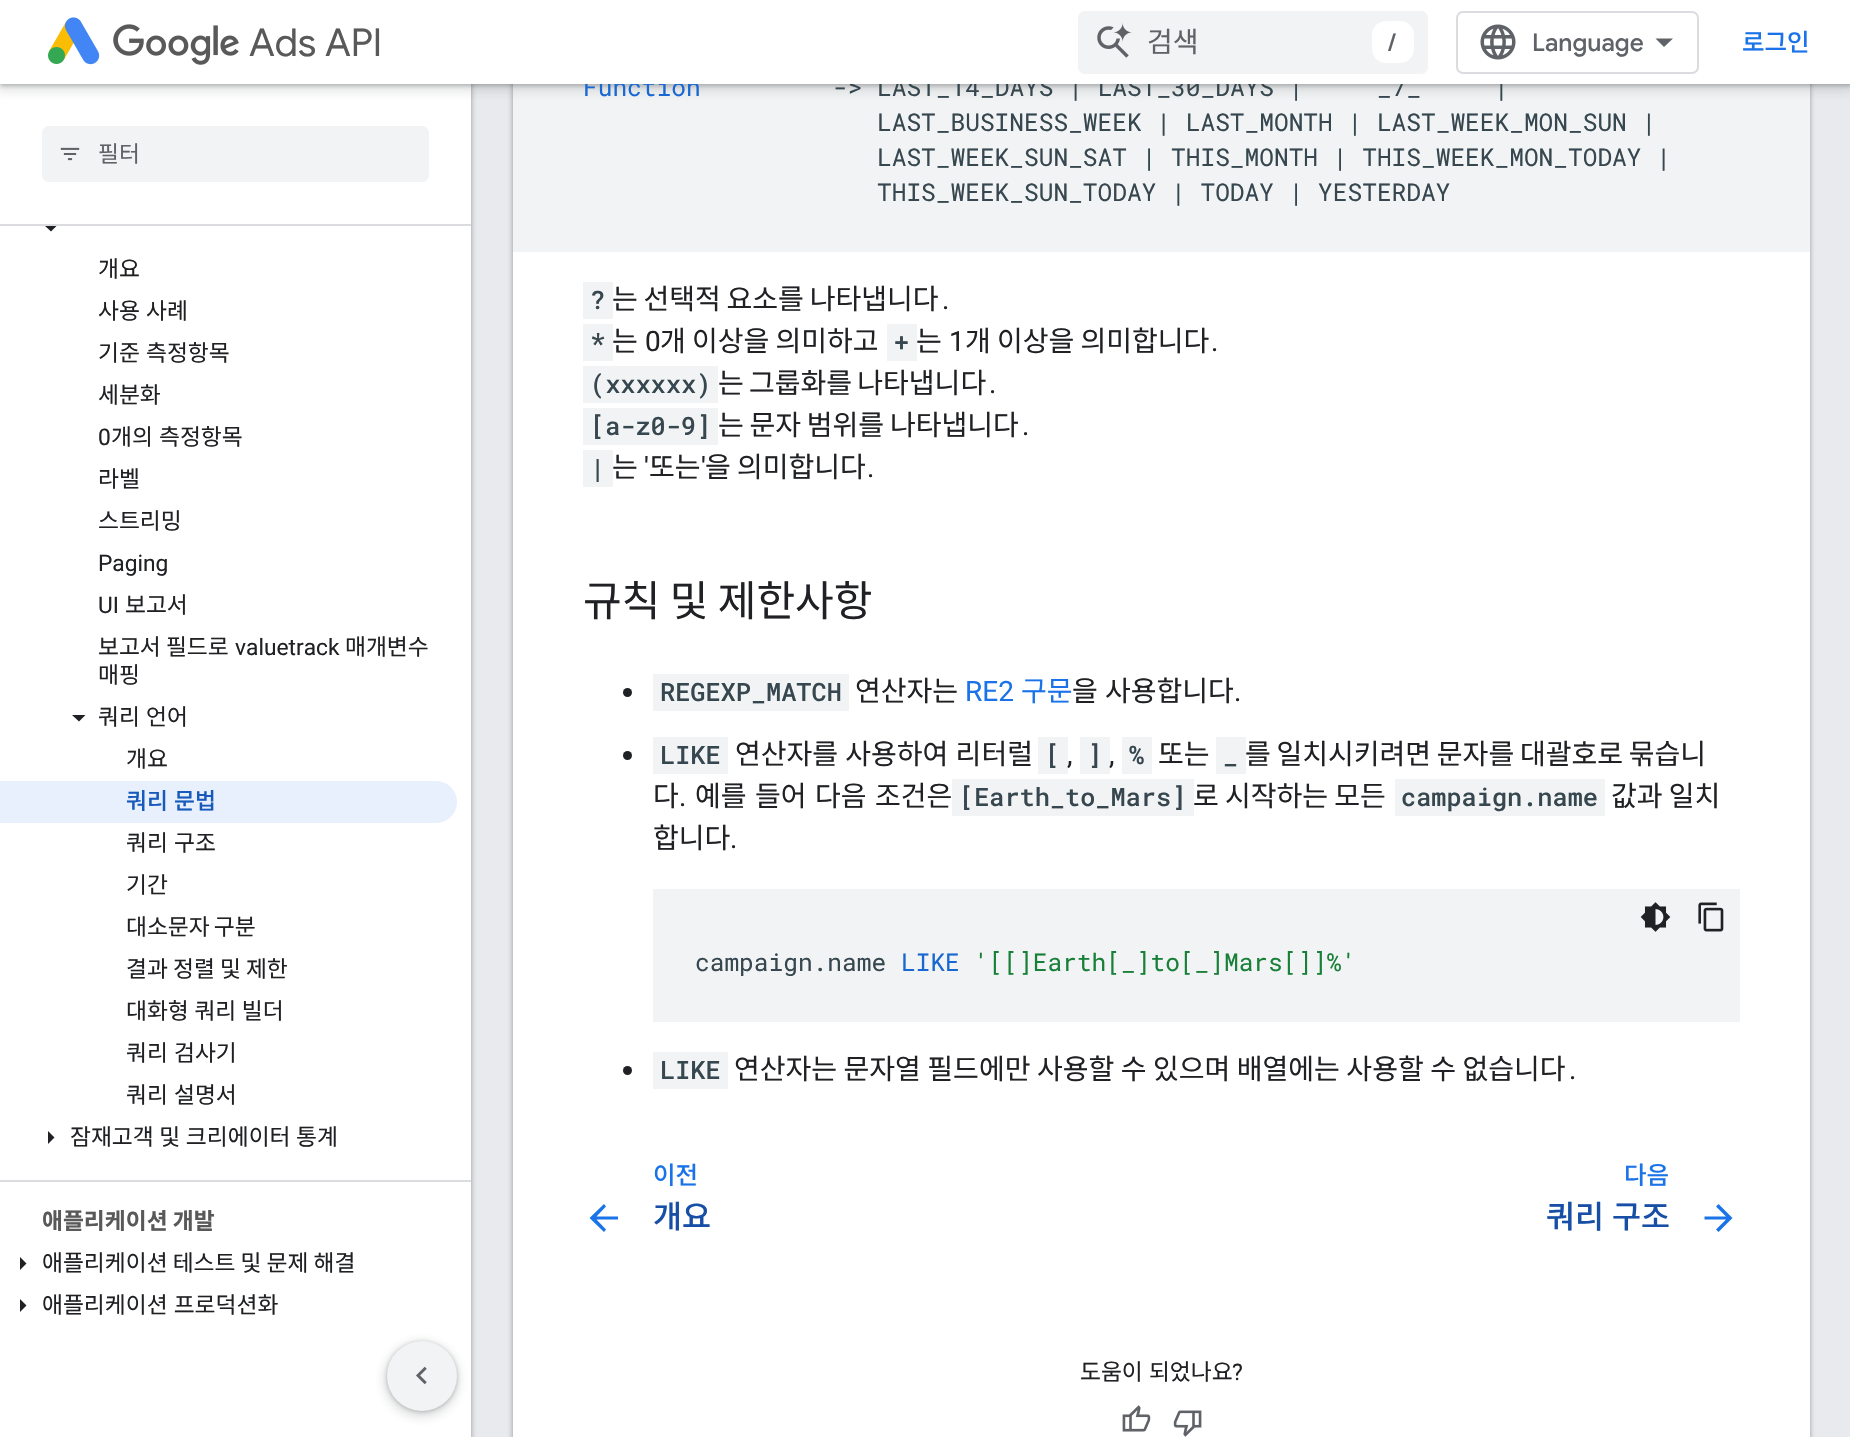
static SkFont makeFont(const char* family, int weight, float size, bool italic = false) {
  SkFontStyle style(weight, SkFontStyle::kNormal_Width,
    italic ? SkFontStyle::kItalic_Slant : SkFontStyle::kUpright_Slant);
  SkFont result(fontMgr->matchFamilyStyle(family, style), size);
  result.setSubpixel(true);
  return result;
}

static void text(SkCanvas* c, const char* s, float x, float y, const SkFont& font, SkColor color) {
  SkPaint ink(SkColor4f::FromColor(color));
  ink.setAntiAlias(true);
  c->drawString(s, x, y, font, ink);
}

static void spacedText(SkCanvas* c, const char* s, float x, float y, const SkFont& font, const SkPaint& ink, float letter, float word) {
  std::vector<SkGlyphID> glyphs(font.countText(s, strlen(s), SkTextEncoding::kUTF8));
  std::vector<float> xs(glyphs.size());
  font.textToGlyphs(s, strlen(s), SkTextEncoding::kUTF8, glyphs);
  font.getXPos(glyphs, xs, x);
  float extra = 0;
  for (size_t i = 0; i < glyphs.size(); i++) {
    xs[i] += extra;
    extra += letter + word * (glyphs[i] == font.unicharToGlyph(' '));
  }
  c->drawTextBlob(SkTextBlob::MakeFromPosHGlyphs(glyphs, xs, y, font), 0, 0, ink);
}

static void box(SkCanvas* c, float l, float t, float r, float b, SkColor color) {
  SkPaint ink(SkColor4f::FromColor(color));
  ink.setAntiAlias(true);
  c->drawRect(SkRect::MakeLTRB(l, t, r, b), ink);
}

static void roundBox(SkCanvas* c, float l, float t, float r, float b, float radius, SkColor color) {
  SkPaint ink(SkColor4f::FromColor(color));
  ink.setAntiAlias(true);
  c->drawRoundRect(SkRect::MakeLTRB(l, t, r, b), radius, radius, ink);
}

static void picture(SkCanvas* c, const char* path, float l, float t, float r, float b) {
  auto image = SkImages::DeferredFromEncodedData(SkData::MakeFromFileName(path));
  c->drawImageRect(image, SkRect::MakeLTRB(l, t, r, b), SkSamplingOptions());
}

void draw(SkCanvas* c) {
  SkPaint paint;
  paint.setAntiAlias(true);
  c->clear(0xffe8eaed);
  paint.setColor(0x263c4043);
  paint.setMaskFilter(SkMaskFilter::MakeBlur(kNormal_SkBlurStyle, 2.5f));
  c->drawRect(SkRect::MakeLTRB(-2, 0, 473, 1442), paint);
  paint.setMaskFilter(nullptr);
  paint.setColor(0x4d3c4043);
  paint.setMaskFilter(SkMaskFilter::MakeBlur(kNormal_SkBlurStyle, 2));
  c->drawRect(SkRect::MakeLTRB(0, 2, 471, 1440), paint);
  paint.setMaskFilter(nullptr);
  box(c, 0, 226, 471, 1437, 0xffffffff);
  box(c, 0, 84, 471, 224, 0xffffffff);
  paint.setColor(0x263c4043);
  paint.setMaskFilter(SkMaskFilter::MakeBlur(kNormal_SkBlurStyle, 2.5f));
  c->drawRoundRect(SkRect::MakeLTRB(511, -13, 1811, 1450), 5, 5, paint);
  paint.setMaskFilter(nullptr);
  paint.setColor(0x4d3c4043);
  paint.setMaskFilter(SkMaskFilter::MakeBlur(kNormal_SkBlurStyle, 2));
  c->drawRoundRect(SkRect::MakeLTRB(513, -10, 1810, 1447), 4, 4, paint);
  paint.setMaskFilter(nullptr);
  box(c, 513, 84, 1810, 252, 0xfff1f3f4);
  paint.setColor(0x263c4043);
  paint.setMaskFilter(SkMaskFilter::MakeBlur(kNormal_SkBlurStyle, 5));
  c->drawRect(SkRect::MakeLTRB(-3, 0, 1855, 91), paint);
  paint.setMaskFilter(nullptr);
  paint.setColor(0x4d3c4043);
  paint.setMaskFilter(SkMaskFilter::MakeBlur(kNormal_SkBlurStyle, 2));
  c->drawRect(SkRect::MakeLTRB(0, 2, 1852, 86), paint);
  paint.setMaskFilter(nullptr);
  SkFont face1 = makeFont("Roboto Mono", 400, 24.5f);
  text(c, "Function", 583, 96, face1, 0xff1967d2);
  text(c, "-> LAST_14_DAYS | LAST_30_DAYS |", 833, 96, face1, 0xff37474f);
  text(c, "_7_", 1377, 96, face1, 0xff37474f);
  text(c, "|", 1494, 96, face1, 0xff37474f);
  box(c, 0, 0, 1850, 84, 0xffffffff);
  picture(c, "img_01.png", 48, 17, 100, 65);
  picture(c, "img_02.png", 113, 24, 239, 65);
  SkFont face2 = makeFont("Google Sans", 400, 38.5f);
  text(c, "Ads API", 249, 56, face2, 0xff595959);
  roundBox(c, 1078, 11, 1428, 74, 7, 0xfff1f3f4);
  picture(c, "img_03.png", 1097, 23, 1132, 58);
  SkFont face3 = makeFont("Noto Sans KR", 400, 28);
  text(c, "검색", 1147, 52, face3, 0xff5f6368);
  roundBox(c, 1372, 21, 1414, 63, 14, 0xffffffff);
  SkFont face4 = makeFont("Google Sans", 500, 24.5f);
  text(c, "/", 1388, 51, face4, 0xff5f6368);
  paint.setStyle(SkPaint::kStroke_Style);
  paint.setStrokeWidth(2);
  paint.setColor(0xffdadce0);
  c->drawRoundRect(SkRect::MakeLTRB(1457, 12, 1698, 73), 6, 6, paint);
  picture(c, "img_04.png", 1480, 24, 1516, 60);
  text(c, "Language", 1532, 51, face4, 0xff5f6368);
  paint.setStyle(SkPaint::kFill_Style);
  paint.setColor(0xff5f6368);
  c->drawPath(SkPathBuilder().moveTo(1664, 47).lineTo(1655.5f, 38.5f).lineTo(1673, 38.5f).close().detach(), paint);
  SkFont face5 = makeFont("Noto Sans KR", 500, 24.5f);
  text(c, "로그인", 1742, 51, face5, 0xff1a73e8);
  paint.setColor(0xff202124);
  c->drawPath(SkPathBuilder().moveTo(44, 225).lineTo(57.5f, 225).lineTo(51, 231.5f).close().detach(), paint);
  box(c, 0, 224, 471, 226, 0xffdadce0);
  roundBox(c, 42, 126, 429, 182, 7, 0xfff1f3f4);
  picture(c, "img_05.png", 60, 147, 80, 161);
  SkFont face6 = makeFont("Noto Sans KR", 400, 22.75f);
  text(c, "필터", 98, 162, face6, 0xff5f6368);
  text(c, "개요", 98, 277, face6, 0xff202124);
  spacedText(c, "사용 사례", 98, 319, face6, paint, 0, 1);
  spacedText(c, "기준 측정항목", 98, 361, face6, paint, 0, 1);
  text(c, "세분화", 98, 403, face6, 0xff202124);
  SkFont face7 = makeFont("Roboto", 400, 22.75f);
  text(c, "0", 98, 445, face7, 0xff202124);
  spacedText(c, "개의 측정항목", 111, 445, face6, paint, 0, 1);
  text(c, "라벨", 98, 487, face6, 0xff202124);
  text(c, "스트리밍", 98, 529, face6, 0xff202124);
  text(c, "Paging", 98, 571, face7, 0xff202124);
  text(c, "UI", 98, 613, face7, 0xff202124);
  text(c, "보고서", 125, 613, face6, 0xff202124);
  text(c, "보고서 필드로", 98, 655, face6, 0xff202124);
  text(c, "valuetrack", 235, 655, face7, 0xff202124);
  text(c, "매개변수", 345, 655, face6, 0xff202124);
  text(c, "매핑", 98, 683, face6, 0xff202124);
  c->drawPath(SkPathBuilder().moveTo(72, 715).lineTo(85.5f, 715).lineTo(79, 721.5f).close().detach(), paint);
  spacedText(c, "쿼리 언어", 98, 725, face6, paint, 0, 1);
  text(c, "개요", 126, 767, face6, 0xff202124);
  paint.setColor(0xffe8f0fe);
  c->drawPath(SkPathBuilder().moveTo(0, 781).lineTo(436, 781).cubicTo(447.5f, 781, 457, 790.5f, 457, 802).cubicTo(457, 813.5f, 447.5f, 823, 436, 823).lineTo(0, 823).close().detach(), paint);
  SkFont face8 = makeFont("Noto Sans KR", 500, 22.75f);
  paint.setColor(0xff185abc);
  spacedText(c, "쿼리 문법", 126, 809, face8, paint, 0, 1);
  paint.setColor(0xff202124);
  spacedText(c, "쿼리 구조", 126, 851, face6, paint, 0, 1);
  text(c, "기간", 126, 893, face6, 0xff202124);
  spacedText(c, "대소문자 구분", 126, 935, face6, paint, 0, -1);
  text(c, "결과 정렬 및 제한", 126, 977, face6, 0xff202124);
  spacedText(c, "대화형 쿼리 빌더", 126, 1019, face6, paint, 0, 0.5f);
  spacedText(c, "쿼리 검사기", 126, 1061, face6, paint, 0, 1);
  spacedText(c, "쿼리 설명서", 126, 1103, face6, paint, 0, 1);
  c->drawPath(SkPathBuilder().moveTo(48, 1144).lineTo(48, 1131).lineTo(54.5f, 1137.5f).close().detach(), paint);
  spacedText(c, "잠재고객 및 크리에이터 통계", 70, 1145, face6, paint, 0, 0.5f);
  box(c, 0, 1180, 471, 1182, 0xffdadce0);
  SkFont face9 = makeFont("Noto Sans KR", 700, 22.75f);
  text(c, "애플리케이션 개발", 42, 1229, face9, 0xff595959);
  c->drawPath(SkPathBuilder().moveTo(20, 1270).lineTo(20, 1257).lineTo(26.5f, 1263.5f).close().detach(), paint);
  text(c, "애플리케이션 테스트 및 문제 해결", 42, 1271, face6, 0xff202124);
  c->drawPath(SkPathBuilder().moveTo(20, 1312).lineTo(20, 1299).lineTo(26.5f, 1305.5f).close().detach(), paint);
  spacedText(c, "애플리케이션 프로덕션화", 42, 1313, face6, paint, 0, 1);
  box(c, 513, 252, 1810, 1437, 0xffffffff);
  text(c, "LAST_BUSINESS_WEEK | LAST_MONTH | LAST_WEEK_MON_SUN |", 877, 131, face1, 0xff37474f);
  text(c, "LAST_WEEK_SUN_SAT | THIS_MONTH | THIS_WEEK_MON_TODAY |", 877, 166, face1, 0xff37474f);
  text(c, "THIS_WEEK_SUN_TODAY | TODAY | YESTERDAY", 877, 201, face1, 0xff37474f);
  box(c, 583, 282, 613, 319, 0xfff1f3f4);
  SkFont face10 = makeFont("Roboto Mono", 500, 25.25f);
  text(c, "?", 590, 309, face10, 0xff37474f);
  spacedText(c, "는 선택적 요소를 나타냅니다", 612, 309, face3, paint, 0, -0.5f);
  SkFont face11 = makeFont("Roboto", 400, 28);
  text(c, ".", 942, 309, face11, 0xff202124);
  box(c, 583, 324, 613, 361, 0xfff1f3f4);
  text(c, "*", 590, 351, face10, 0xff37474f);
  text(c, "는", 612, 351, face3, 0xff202124);
  text(c, "0", 645, 351, face11, 0xff202124);
  text(c, "개 이상을 의미하고", 660, 351, face3, 0xff202124);
  box(c, 887, 324, 917, 361, 0xfff1f3f4);
  text(c, "+", 894, 351, face10, 0xff37474f);
  text(c, "는", 916, 351, face3, 0xff202124);
  text(c, "1", 949, 351, face11, 0xff202124);
  text(c, "개 이상을 의미합니다", 965, 351, face3, 0xff202124);
  text(c, ".", 1211, 351, face11, 0xff202124);
  box(c, 583, 366, 718, 403, 0xfff1f3f4);
  text(c, "(xxxxxx)", 590, 393, face10, 0xff37474f);
  spacedText(c, "는 그룹화를 나타냅니다", 718, 393, face3, paint, 0, -1);
  text(c, ".", 989, 393, face11, 0xff202124);
  box(c, 583, 408, 718, 445, 0xfff1f3f4);
  text(c, "[a-z0-9]", 590, 435, face10, 0xff37474f);
  spacedText(c, "는 문자 범위를 나타냅니다", 718, 435, face3, paint, 0, -0.5f);
  text(c, ".", 1022, 435, face11, 0xff202124);
  box(c, 583, 450, 613, 487, 0xfff1f3f4);
  text(c, "|", 590, 477, face10, 0xff37474f);
  text(c, "는", 612, 477, face3, 0xff202124);
  text(c, "'", 644, 477, face11, 0xff202124);
  text(c, "또는", 649, 477, face3, 0xff202124);
  text(c, "'", 701, 477, face11, 0xff202124);
  text(c, "을 의미합니다", 705, 477, face3, 0xff202124);
  text(c, ".", 867, 477, face11, 0xff202124);
  SkFont face12 = makeFont("Noto Sans KR", 400, 42);
  text(c, "규칙 및 제한사항", 583, 616, face12, 0xff202124);
  c->drawCircle(627.5f, 692.5f, 4.5f, paint);
  box(c, 653, 674, 849, 711, 0xfff1f3f4);
  text(c, "REGEXP_MATCH", 660, 701, face10, 0xff37474f);
  text(c, "연산자는", 855, 701, face3, 0xff202124);
  text(c, "RE2", 965, 701, face11, 0xff1a73e8);
  text(c, "구문", 1021, 701, face3, 0xff1a73e8);
  spacedText(c, "을 사용합니다", 1072, 701, face3, paint, 0, 1);
  text(c, ".", 1234, 701, face11, 0xff202124);
  c->drawCircle(627.5f, 755.5f, 4.5f, paint);
  box(c, 653, 737, 728, 774, 0xfff1f3f4);
  text(c, "LIKE", 660, 764, face10, 0xff37474f);
  spacedText(c, "연산자를 사용하여 리터럴", 735, 764, face3, paint, 0, 1);
  box(c, 1038, 737, 1068, 774, 0xfff1f3f4);
  text(c, "[", 1045, 764, face10, 0xff37474f);
  text(c, ",", 1067, 764, face11, 0xff202124);
  box(c, 1080, 737, 1110, 774, 0xfff1f3f4);
  text(c, "]", 1087, 764, face10, 0xff37474f);
  text(c, ",", 1109, 764, face11, 0xff202124);
  box(c, 1122, 737, 1152, 774, 0xfff1f3f4);
  text(c, "%", 1129, 764, face10, 0xff37474f);
  text(c, "또는", 1158, 764, face3, 0xff202124);
  box(c, 1216, 737, 1246, 774, 0xfff1f3f4);
  text(c, "_", 1223, 764, face10, 0xff37474f);
  spacedText(c, "를 일치시키려면 문자를 대괄호로 묶습니", 1245, 764, face3, paint, 0, -0.5f);
  text(c, "다", 653, 806, face3, 0xff202124);
  text(c, ".", 679, 806, face11, 0xff202124);
  text(c, "예를", 695, 806, face3, 0xff202124);
  text(c, "들어", 755, 806, face3, 0xff202124);
  text(c, "다음", 815, 806, face3, 0xff202124);
  text(c, "조건은", 875, 806, face3, 0xff202124);
  box(c, 952, 779, 1194, 816, 0xfff1f3f4);
  text(c, "[Earth_to_Mars]", 959, 806, face10, 0xff37474f);
  text(c, "로 시작하는 모든", 1193, 806, face3, 0xff202124);
  box(c, 1395, 779, 1605, 816, 0xfff1f3f4);
  text(c, "campaign.name", 1401, 806, face10, 0xff37474f);
  text(c, "값과 일치", 1611, 806, face3, 0xff202124);
  text(c, "합니다", 653, 848, face3, 0xff202124);
  text(c, ".", 730, 848, face11, 0xff202124);
  box(c, 653, 889, 1740, 1022, 0xfff1f3f4);
  picture(c, "img_06.png", 1640, 902, 1671, 932);
  picture(c, "img_07.png", 1698, 902, 1724, 932);
  text(c, "campaign.name", 695, 971, face1, 0xff37474f);
  text(c, "LIKE", 901, 971, face1, 0xff1967d2);
  text(c, "'[[]Earth[_]to[_]Mars[]]%'", 974, 971, face1, 0xff188038);
  c->drawCircle(627.5f, 1070.5f, 4.5f, paint);
  box(c, 653, 1052, 728, 1089, 0xfff1f3f4);
  text(c, "LIKE", 660, 1079, face10, 0xff37474f);
  spacedText(c, "연산자는 문자열 필드에만 사용할 수 있으며 배열에는 사용할 수 없습니다", 734, 1079, face3, paint, 0, 0.25f);
  text(c, ".", 1569, 1079, face11, 0xff202124);
  text(c, "이전", 653, 1184, face5, 0xff1a73e8);
  paint.setColor(0xff1a73e8);
  c->drawPath(SkPathBuilder().moveTo(618, 1216.5f).lineTo(618, 1219.5f).lineTo(596.5f, 1219.5f).lineTo(606, 1229.5f).lineTo(604, 1232).lineTo(589.5f, 1218).lineTo(604, 1204).lineTo(606, 1206.5f).lineTo(596.5f, 1216.5f).close().detach(), paint);
  SkFont face13 = makeFont("Noto Sans KR", 500, 31.5f);
  text(c, "개요", 653, 1228, face13, 0xff174ea6);
  text(c, "다음", 1624, 1184, face5, 0xff1a73e8);
  paint.setColor(0xff174ea6);
  spacedText(c, "쿼리 구조", 1546, 1228, face13, paint, 0, 1);
  paint.setColor(0xff1a73e8);
  c->drawPath(SkPathBuilder().moveTo(1718.5f, 1204).lineTo(1732.5f, 1218).lineTo(1718.5f, 1232).lineTo(1716, 1229.5f).lineTo(1726, 1219.5f).lineTo(1704.5f, 1219.5f).lineTo(1704.5f, 1216.5f).lineTo(1726, 1216.5f).lineTo(1716, 1206.5f).close().detach(), paint);
  paint.setColor(0xff202124);
  spacedText(c, "도움이 되었나요", 1080, 1380, face6, paint, 0, 1);
  text(c, "?", 1232, 1380, face7, 0xff202124);
  picture(c, "img_08.png", 1122, 1405, 1151, 1432);
  picture(c, "img_09.png", 1173, 1410, 1202, 1437);
  paint.setColor(0x263c4043);
  paint.setMaskFilter(SkMaskFilter::MakeBlur(kNormal_SkBlurStyle, 5));
  c->drawRoundRect(SkRect::MakeLTRB(383, 1341, 460, 1418), 38.5f, 38.5f, paint);
  paint.setMaskFilter(nullptr);
  paint.setColor(0x4d3c4043);
  paint.setMaskFilter(SkMaskFilter::MakeBlur(kNormal_SkBlurStyle, 2));
  c->drawRoundRect(SkRect::MakeLTRB(387, 1342, 457, 1412), 35, 35, paint);
  paint.setMaskFilter(nullptr);
  paint.setColor(0xfff1f3f4);
  c->drawCircle(422, 1376, 35, paint);
  picture(c, "img_10.png", 416, 1366, 427, 1385);
}
